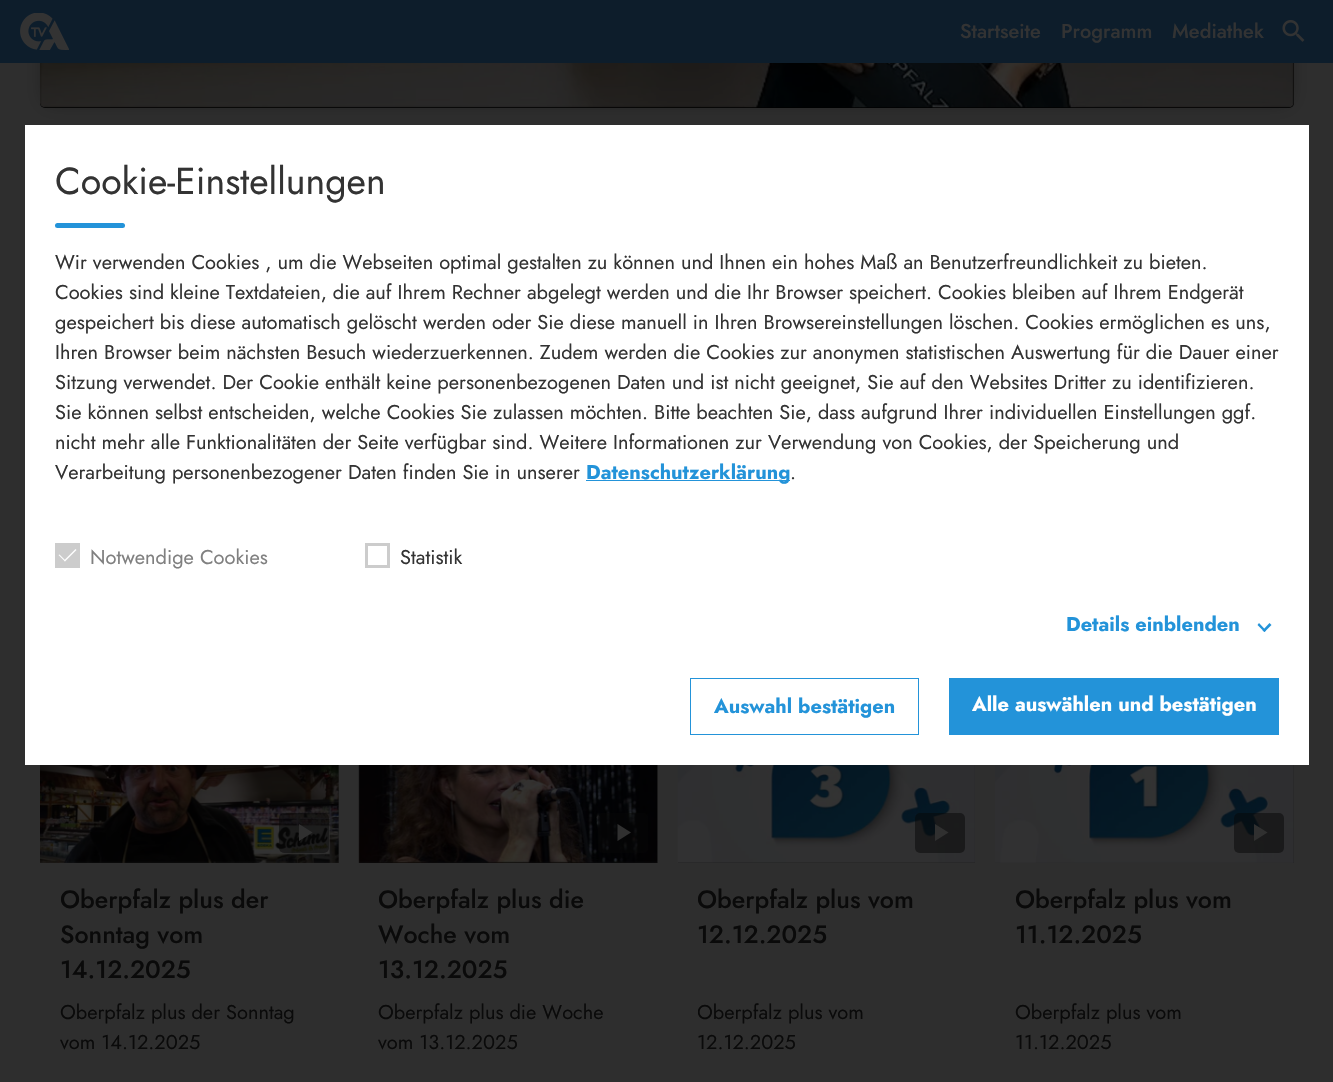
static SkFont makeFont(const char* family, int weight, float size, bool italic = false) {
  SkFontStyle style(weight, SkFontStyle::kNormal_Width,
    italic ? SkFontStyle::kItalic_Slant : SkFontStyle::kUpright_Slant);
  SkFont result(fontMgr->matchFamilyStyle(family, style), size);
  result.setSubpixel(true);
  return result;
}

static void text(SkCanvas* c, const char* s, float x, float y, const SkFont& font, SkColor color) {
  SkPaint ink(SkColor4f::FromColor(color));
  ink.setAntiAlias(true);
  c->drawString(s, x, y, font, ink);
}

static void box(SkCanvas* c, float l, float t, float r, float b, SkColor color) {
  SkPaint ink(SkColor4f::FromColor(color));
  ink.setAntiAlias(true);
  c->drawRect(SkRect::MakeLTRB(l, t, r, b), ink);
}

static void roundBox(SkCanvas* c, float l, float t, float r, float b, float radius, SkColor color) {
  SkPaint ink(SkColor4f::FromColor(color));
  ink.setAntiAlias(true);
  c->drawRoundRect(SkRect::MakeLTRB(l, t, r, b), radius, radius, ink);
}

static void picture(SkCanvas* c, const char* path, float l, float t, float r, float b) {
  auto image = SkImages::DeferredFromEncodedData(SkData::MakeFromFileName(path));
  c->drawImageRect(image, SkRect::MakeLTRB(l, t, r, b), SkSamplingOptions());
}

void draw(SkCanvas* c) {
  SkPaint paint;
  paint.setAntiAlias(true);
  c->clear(0xff2e2e2e);
  paint.setColor(0x66000000);
  paint.setMaskFilter(SkMaskFilter::MakeBlur(kNormal_SkBlurStyle, 9.5f));
  c->drawRect(SkRect::MakeLTRB(46, -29, 1288, 101), paint);
  paint.setMaskFilter(nullptr);
  picture(c, "img_03.png", 40, 103, 1294, 108);
  picture(c, "img_05.png", 40, 103, 1294, 108);
  roundBox(c, 40, -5, 1294, 108, 5, 0xff000000);
  box(c, 0, 0, 1333, 63, 0xff0d1d2b);
  picture(c, "img_01.png", 20, 13, 69, 50);
  SkFont face1 = makeFont("Jost", 500, 20);
  text(c, "Startseite", 960, 38, face1, 0xff333333);
  text(c, "Programm", 1061, 38, face1, 0xff333333);
  text(c, "Mediathek", 1172, 38, face1, 0xff333333);
  picture(c, "img_02.png", 1282, 20, 1305, 42);
  picture(c, "img_04.png", 40, 63, 1294, 108);
  box(c, 40, 765, 339, 863, 0x33000000);
  box(c, 40, 765, 339, 863, 0x1a000000);
  picture(c, "img_06.png", 40, 765, 339, 863);
  roundBox(c, 279, 813, 329, 853, 5, 0x80050505);
  paint.setColor(0xff303030);
  c->drawPath(SkPathBuilder().moveTo(299, 824).lineTo(312.5f, 832.5f).lineTo(299, 841).close().detach(), paint);
  SkFont face2 = makeFont("Jost", 500, 25);
  text(c, "Oberpfalz plus der", 60, 908, face2, 0xff0a0a0a);
  text(c, "Sonntag vom", 60, 943, face2, 0xff0a0a0a);
  text(c, "14.12.2025", 60, 978, face2, 0xff0a0a0a);
  SkFont face3 = makeFont("Jost", 400, 20);
  text(c, "Oberpfalz plus der Sonntag", 60, 1019, face3, 0xff0a0a0a);
  text(c, "vom 14.12.2025", 60, 1049, face3, 0xff0a0a0a);
  box(c, 359, 765, 658, 863, 0x33000000);
  box(c, 359, 765, 658, 863, 0x1a000000);
  picture(c, "img_07.png", 358, 765, 658, 863);
  roundBox(c, 598, 813, 648, 853, 5, 0x80050505);
  c->drawPath(SkPathBuilder().moveTo(617.5f, 824).lineTo(631, 832.5f).lineTo(617.5f, 841).close().detach(), paint);
  text(c, "Oberpfalz plus die", 378, 908, face2, 0xff0a0a0a);
  text(c, "Woche vom", 378, 943, face2, 0xff0a0a0a);
  text(c, "13.12.2025", 378, 978, face2, 0xff0a0a0a);
  text(c, "Oberpfalz plus die Woche", 378, 1019, face3, 0xff0a0a0a);
  text(c, "vom 13.12.2025", 378, 1049, face3, 0xff0a0a0a);
  box(c, 678, 765, 975, 863, 0x33000000);
  box(c, 678, 765, 975, 863, 0x1a000000);
  picture(c, "img_08.png", 677, 765, 975, 863);
  roundBox(c, 915, 813, 965, 853, 5, 0x80050505);
  c->drawPath(SkPathBuilder().moveTo(935, 824).lineTo(948.5f, 832.5f).lineTo(935, 841).close().detach(), paint);
  c->save();
  c->clipRect(SkRect::MakeLTRB(698, 883, 955, 953));
  text(c, "Oberpfalz plus vom", 697, 908, face2, 0xff0a0a0a);
  c->restore();
  text(c, "12.12.2025", 697, 943, face2, 0xff0a0a0a);
  c->save();
  c->clipRect(SkRect::MakeLTRB(698, 998, 955, 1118));
  text(c, "Oberpfalz plus vom", 697, 1019, face3, 0xff0a0a0a);
  c->restore();
  text(c, "12.12.2025", 697, 1049, face3, 0xff0a0a0a);
  box(c, 995, 765, 1294, 863, 0x33000000);
  box(c, 995, 765, 1294, 863, 0x1a000000);
  picture(c, "img_09.png", 995, 765, 1294, 863);
  roundBox(c, 1234, 813, 1284, 853, 5, 0x80050505);
  c->drawPath(SkPathBuilder().moveTo(1254, 824).lineTo(1267.5f, 832.5f).lineTo(1254, 841).close().detach(), paint);
  text(c, "Oberpfalz plus vom", 1015, 908, face2, 0xff0a0a0a);
  text(c, "11.12.2025", 1015, 943, face2, 0xff0a0a0a);
  text(c, "Oberpfalz plus vom", 1015, 1019, face3, 0xff0a0a0a);
  text(c, "11.12.2025", 1015, 1049, face3, 0xff0a0a0a);
  box(c, 25, 125, 1309, 765, 0xffffffff);
  SkFont face4 = makeFont("Jost", 400, 37.5f);
  text(c, "Cookie-Einstellungen", 55, 194, face4, 0xff333333);
  roundBox(c, 55, 223, 125, 228, 2.5f, 0xff2393d9);
  text(c, "Wir verwenden Cookies , um die Webseiten optimal gestalten zu können und Ihnen ein hohes Maß an Benutzerfreundlichkeit zu bieten.", 55, 269, face3, 0xff333333);
  text(c, "Cookies sind kleine Textdateien, die auf Ihrem Rechner abgelegt werden und die Ihr Browser speichert. Cookies bleiben auf Ihrem Endgerät", 55, 299, face3, 0xff333333);
  text(c, "gespeichert bis diese automatisch gelöscht werden oder Sie diese manuell in Ihren Browsereinstellungen löschen. Cookies ermöglichen es uns,", 55, 329, face3, 0xff333333);
  text(c, "Ihren Browser beim nächsten Besuch wiederzuerkennen. Zudem werden die Cookies zur anonymen statistischen Auswertung für die Dauer einer", 55, 359, face3, 0xff333333);
  text(c, "Sitzung verwendet. Der Cookie enthält keine personenbezogenen Daten und ist nicht geeignet, Sie auf den Websites Dritter zu identifizieren.", 55, 389, face3, 0xff333333);
  text(c, "Sie können selbst entscheiden, welche Cookies Sie zulassen möchten. Bitte beachten Sie, dass aufgrund Ihrer individuellen Einstellungen ggf.", 55, 419, face3, 0xff333333);
  text(c, "nicht mehr alle Funktionalitäten der Seite verfügbar sind. Weitere Informationen zur Verwendung von Cookies, der Speicherung und", 55, 449, face3, 0xff333333);
  text(c, "Verarbeitung personenbezogener Daten finden Sie in unserer", 55, 479, face3, 0xff333333);
  box(c, 586, 480, 790, 481, 0xff2393d9);
  SkFont face5 = makeFont("Jost", 700, 20);
  text(c, "Datenschutzerklärung", 586, 479, face5, 0xff2393d9);
  text(c, ".", 790, 479, face3, 0xff333333);
  box(c, 55, 543, 80, 568, 0xffcccccc);
  paint.setColor(0xffffffff);
  c->drawPath(SkPathBuilder().moveTo(75.5f, 549).lineTo(76.5f, 550).lineTo(65, 561.5f).lineTo(64, 560.5f).close().detach(), paint);
  c->drawPath(SkPathBuilder().moveTo(59.5f, 554.5f).lineTo(65.5f, 560.5f).lineTo(65, 561.5f).lineTo(58.5f, 555).close().detach(), paint);
  text(c, "Notwendige Cookies", 90, 564, face3, 0xff808080);
  paint.setStyle(SkPaint::kStroke_Style);
  paint.setStrokeWidth(3);
  paint.setColor(0xffcccccc);
  c->drawRect(SkRect::MakeLTRB(366.5f, 544.5f, 388.5f, 566.5f), paint);
  text(c, "Statistik", 400, 564, face3, 0xff333333);
  text(c, "Details einblenden", 1066, 631, face5, 0xff2393d9);
  paint.setStyle(SkPaint::kFill_Style);
  paint.setColor(0xff2393d9);
  c->drawPath(SkPathBuilder().moveTo(1271.5f, 625).lineTo(1264.5f, 632).lineTo(1262.5f, 630.5f).lineTo(1269.5f, 623).close().detach(), paint);
  c->drawPath(SkPathBuilder().moveTo(1266, 630.5f).lineTo(1264.5f, 632).lineTo(1257.5f, 625).lineTo(1259, 623).close().detach(), paint);
  paint.setStyle(SkPaint::kStroke_Style);
  paint.setStrokeWidth(1);
  c->drawRect(SkRect::MakeLTRB(690.5f, 678.5f, 918.5f, 734.5f), paint);
  text(c, "Auswahl bestätigen", 714, 713, face5, 0xff2393d9);
  box(c, 949, 678, 1279, 735, 0xff2393d9);
  text(c, "Alle auswählen und bestätigen", 972, 711, face5, 0xffffffff);
}
